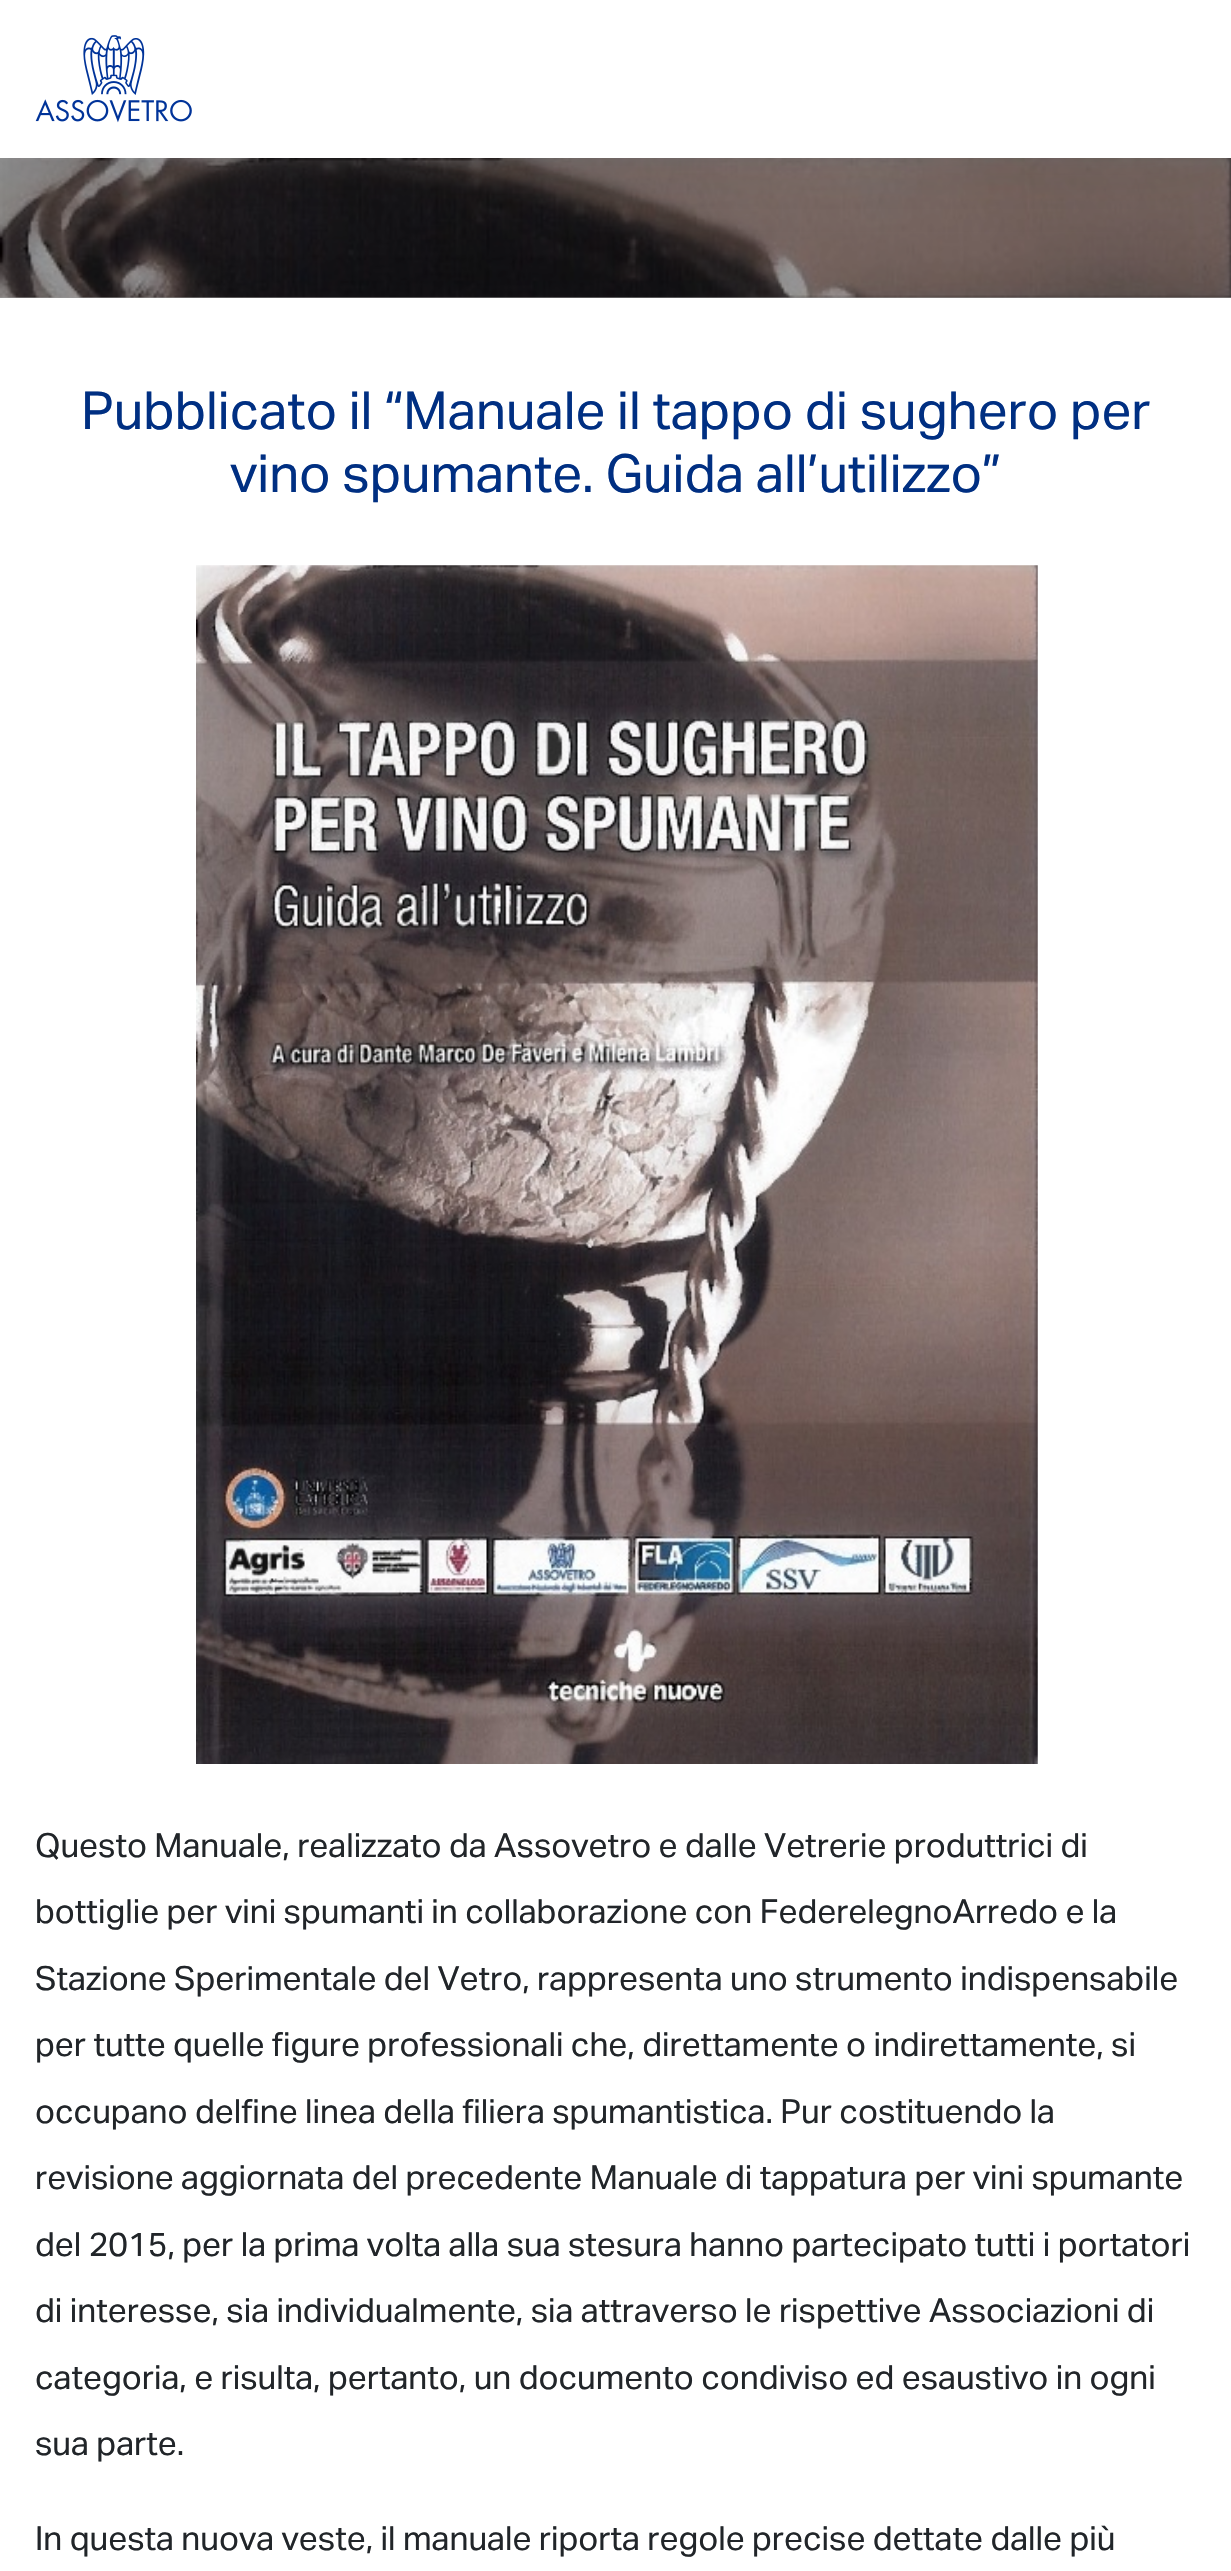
static SkFont makeFont(const char* family, int weight, float size, bool italic = false) {
  SkFontStyle style(weight, SkFontStyle::kNormal_Width,
    italic ? SkFontStyle::kItalic_Slant : SkFontStyle::kUpright_Slant);
  SkFont result(fontMgr->matchFamilyStyle(family, style), size);
  result.setSubpixel(true);
  return result;
}

static void text(SkCanvas* c, const char* s, float x, float y, const SkFont& font, SkColor color) {
  SkPaint ink(SkColor4f::FromColor(color));
  ink.setAntiAlias(true);
  c->drawString(s, x, y, font, ink);
}

static void box(SkCanvas* c, float l, float t, float r, float b, SkColor color) {
  SkPaint ink(SkColor4f::FromColor(color));
  ink.setAntiAlias(true);
  c->drawRect(SkRect::MakeLTRB(l, t, r, b), ink);
}

static void picture(SkCanvas* c, const char* path, float l, float t, float r, float b) {
  auto image = SkImages::DeferredFromEncodedData(SkData::MakeFromFileName(path));
  c->drawImageRect(image, SkRect::MakeLTRB(l, t, r, b), SkSamplingOptions());
}

void draw(SkCanvas* c) {
  SkPaint paint;
  paint.setAntiAlias(true);
  c->clear(0xffffffff);
  box(c, 0, 297, 1231, 298, 0xff999999);
  picture(c, "img_02.png", 0, 158, 1231, 298);
  paint.setColor(0x1a000000);
  paint.setMaskFilter(SkMaskFilter::MakeBlur(kNormal_SkBlurStyle, 44));
  c->drawRect(SkRect::MakeLTRB(0, 0, 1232, 158), paint);
  paint.setMaskFilter(nullptr);
  box(c, 0, 0, 1231, 158, 0xffffffff);
  picture(c, "img_01.png", 35, 35, 192, 123);
  SkFont face1 = makeFont("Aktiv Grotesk", 400, 52.5f);
  text(c, "Pubblicato il “Manuale il tappo di sughero per", 81, 429, face1, 0xff002f82);
  text(c, "vino spumante. Guida all’utilizzo”", 230, 492, face1, 0xff002f82);
  picture(c, "img_03.png", 196, 565, 1038, 1764);
  SkFont face2 = makeFont("Aktiv Grotesk", 400, 33.25f);
  text(c, "Questo Manuale, realizzato da Assovetro e dalle Vetrerie produttrici di", 35, 1857, face2, 0xff212529);
  text(c, "bottiglie per vini spumanti in collaborazione con FederelegnoArredo e la", 35, 1923, face2, 0xff212529);
  text(c, "Stazione Sperimentale del Vetro, rappresenta uno strumento indispensabile", 35, 1990, face2, 0xff212529);
  text(c, "per tutte quelle figure professionali che, direttamente o indirettamente, si", 35, 2056, face2, 0xff212529);
  text(c, "occupano delfine linea della filiera spumantistica. Pur costituendo la", 35, 2123, face2, 0xff212529);
  text(c, "revisione aggiornata del precedente Manuale di tappatura per vini spumante", 35, 2189, face2, 0xff212529);
  text(c, "del 2015, per la prima volta alla sua stesura hanno partecipato tutti i portatori", 35, 2256, face2, 0xff212529);
  text(c, "di interesse, sia individualmente, sia attraverso le rispettive Associazioni di", 35, 2322, face2, 0xff212529);
  text(c, "categoria, e risulta, pertanto, un documento condiviso ed esaustivo in ogni", 35, 2389, face2, 0xff212529);
  text(c, "sua parte.", 35, 2455, face2, 0xff212529);
  text(c, "In questa nuova veste, il manuale riporta regole precise dettate dalle più", 35, 2550, face2, 0xff212529);
}
